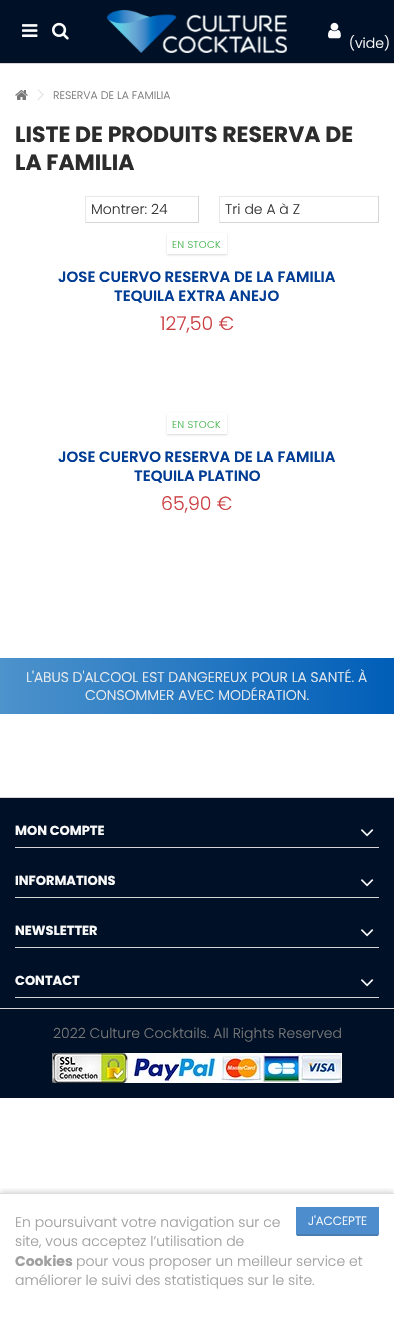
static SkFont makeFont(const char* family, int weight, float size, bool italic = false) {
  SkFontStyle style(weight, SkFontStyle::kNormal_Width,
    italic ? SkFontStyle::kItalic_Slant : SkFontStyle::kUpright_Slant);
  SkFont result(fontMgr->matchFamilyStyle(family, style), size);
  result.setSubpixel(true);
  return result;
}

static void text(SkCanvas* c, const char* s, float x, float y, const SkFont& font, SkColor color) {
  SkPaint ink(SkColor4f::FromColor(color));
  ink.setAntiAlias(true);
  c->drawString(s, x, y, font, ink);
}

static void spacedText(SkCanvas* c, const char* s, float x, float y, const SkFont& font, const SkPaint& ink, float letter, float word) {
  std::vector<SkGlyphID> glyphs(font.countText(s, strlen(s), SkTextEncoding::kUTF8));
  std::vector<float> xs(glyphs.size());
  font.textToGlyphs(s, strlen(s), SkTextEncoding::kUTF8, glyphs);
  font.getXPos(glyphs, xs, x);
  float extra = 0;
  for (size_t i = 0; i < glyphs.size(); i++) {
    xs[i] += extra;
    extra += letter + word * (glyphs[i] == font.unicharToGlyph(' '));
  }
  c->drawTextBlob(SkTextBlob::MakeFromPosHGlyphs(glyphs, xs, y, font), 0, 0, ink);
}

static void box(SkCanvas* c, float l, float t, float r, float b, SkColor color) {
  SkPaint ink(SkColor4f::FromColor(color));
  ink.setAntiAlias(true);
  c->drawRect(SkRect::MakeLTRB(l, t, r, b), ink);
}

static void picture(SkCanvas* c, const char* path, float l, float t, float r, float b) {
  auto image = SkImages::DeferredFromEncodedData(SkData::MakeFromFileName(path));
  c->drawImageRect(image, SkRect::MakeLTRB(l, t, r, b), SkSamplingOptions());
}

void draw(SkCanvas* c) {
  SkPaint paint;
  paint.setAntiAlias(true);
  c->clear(0xffffffff);
  box(c, 0, 0, 394, 63, 0xff001127);
  box(c, 0, 63, 394, 64, 0xffd6d4d4);
  picture(c, "img_01.png", 22, 24, 38, 37);
  picture(c, "img_02.png", 52, 22, 69, 40);
  picture(c, "img_03.png", 107, 10, 287, 53);
  picture(c, "img_04.png", 328, 22, 341, 39);
  SkFont face1 = makeFont("Poppins", 300, 14);
  text(c, "(vide)", 349, 48, face1, 0xffffffff);
  picture(c, "img_05.png", 15, 90, 28, 100);
  paint.setColor(0xffdddddd);
  c->drawPath(SkPathBuilder().moveTo(38, 89).lineTo(43.5f, 94.5f).lineTo(43, 95.5f).lineTo(37.5f, 89.5f).close().detach(), paint);
  c->drawPath(SkPathBuilder().moveTo(43, 94).lineTo(43.5f, 94.5f).lineTo(38, 100.5f).lineTo(37.5f, 99.5f).close().detach(), paint);
  SkFont face2 = makeFont("Poppins", 300, 11);
  text(c, "RESERVA DE LA FAMILIA", 53, 99, face2, 0xff777777);
  SkFont face3 = makeFont("Poppins", 700, 22);
  text(c, "LISTE DE PRODUITS RESERVA DE", 15, 142, face3, 0xff2c2c2c);
  text(c, "LA FAMILIA", 15, 170, face3, 0xff2c2c2c);
  box(c, 85, 196, 199, 197, 0xffe8e8e8);
  box(c, 198, 196, 199, 223, 0xffd6d4d4);
  box(c, 85, 222, 199, 223, 0xffd6d4d4);
  box(c, 85, 196, 86, 223, 0xffe8e8e8);
  text(c, "Montrer: 24", 91, 214, face1, 0xff373737);
  box(c, 219, 196, 379, 197, 0xffe8e8e8);
  box(c, 378, 196, 379, 223, 0xffd6d4d4);
  box(c, 219, 222, 379, 223, 0xffd6d4d4);
  box(c, 219, 196, 220, 223, 0xffe8e8e8);
  text(c, "Tri de A à Z", 225, 214, face1, 0xff373737);
  c->save();
  c->clipPath(SkPathBuilder(SkPathFillType::kEvenOdd).moveTo(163, 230).lineTo(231, 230).lineTo(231, 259).lineTo(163, 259).close().moveTo(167, 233).lineTo(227, 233).lineTo(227, 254).lineTo(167, 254).close().detach(), true);
  paint.setColor(0x26000000);
  paint.setMaskFilter(SkMaskFilter::MakeBlur(kNormal_SkBlurStyle, 1));
  c->drawRect(SkRect::MakeLTRB(167, 234, 227, 255), paint);
  paint.setMaskFilter(nullptr);
  c->restore();
  SkFont face4 = makeFont("Poppins", 300, 10);
  paint.setColor(0xff46b64f);
  spacedText(c, "EN STOCK", 172, 248, face4, paint, 0.25f, 0);
  SkFont face5 = makeFont("Poppins", 600, 15);
  text(c, "JOSE CUERVO RESERVA DE LA FAMILIA", 58, 282, face5, 0xff003c93);
  text(c, "TEQUILA EXTRA ANEJO", 114, 301, face5, 0xff003c93);
  SkFont face6 = makeFont("Poppins", 300, 19);
  text(c, "127,50 €", 160, 330, face6, 0xffcb3f42);
  c->save();
  c->clipPath(SkPathBuilder(SkPathFillType::kEvenOdd).moveTo(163, 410).lineTo(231, 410).lineTo(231, 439).lineTo(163, 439).close().moveTo(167, 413).lineTo(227, 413).lineTo(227, 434).lineTo(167, 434).close().detach(), true);
  paint.setColor(0x26000000);
  paint.setMaskFilter(SkMaskFilter::MakeBlur(kNormal_SkBlurStyle, 1));
  c->drawRect(SkRect::MakeLTRB(167, 414, 227, 435), paint);
  paint.setMaskFilter(nullptr);
  c->restore();
  paint.setColor(0xff46b64f);
  spacedText(c, "EN STOCK", 172, 428, face4, paint, 0.25f, 0);
  text(c, "JOSE CUERVO RESERVA DE LA FAMILIA", 58, 462, face5, 0xff003c93);
  text(c, "TEQUILA PLATINO", 134, 481, face5, 0xff003c93);
  text(c, "65,90 €", 161, 510, face6, 0xffcb3f42);
  box(c, 0, 1009, 394, 1098, 0xff001127);
  {
    const SkColor colors[] = {0xff4d93cc, 0xff005eb8};
    const float stops[] = {0, 1};
    const SkPoint ends[] = {{0, 686}, {394, 686}};
    paint.setShader(SkGradientShader::MakeLinear(ends, colors, stops, 2, SkTileMode::kClamp));
    paint.setAlpha(255);
  }
  c->drawRect(SkRect::MakeLTRB(0, 658, 394, 714), paint);
  text(c, "L'ABUS D'ALCOOL EST DANGEREUX POUR LA SANTÉ. À", 26, 682, face1, 0xfff0f0f0);
  text(c, "CONSOMMER AVEC MODÉRATION.", 85, 700, face1, 0xfff0f0f0);
  box(c, 0, 798, 394, 1008, 0xff001127);
  box(c, 0, 797, 394, 798, 0xffd6d4d4);
  box(c, 0, 1008, 394, 1009, 0xffd6d4d4);
  box(c, 15, 847, 379, 848, 0xffd6d4d4);
  SkFont face7 = makeFont("Poppins", 700, 13);
  text(c, "MON COMPTE", 15, 835, face7, 0xfff9f9f9);
  picture(c, "img_06.png", 361, 829, 374, 837);
  box(c, 15, 897, 379, 898, 0xffd6d4d4);
  text(c, "INFORMATIONS", 15, 885, face7, 0xfff9f9f9);
  picture(c, "img_06.png", 361, 879, 374, 887);
  box(c, 15, 947, 379, 948, 0xffd6d4d4);
  text(c, "NEWSLETTER", 15, 935, face7, 0xfff9f9f9);
  picture(c, "img_06.png", 361, 929, 374, 937);
  box(c, 15, 997, 379, 998, 0xffd6d4d4);
  text(c, "CONTACT", 15, 985, face7, 0xfff9f9f9);
  picture(c, "img_06.png", 361, 979, 374, 987);
  text(c, "2022 Culture Cocktails. All Rights Reserved", 53, 1038, face1, 0xff777777);
  picture(c, "img_07.png", 52, 1053, 342, 1083);
  c->save();
  c->clipRect(SkRect::MakeLTRB(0, 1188, 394, 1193));
  paint.setShader(nullptr);
  paint.setColor(0x334d4d4d);
  paint.setMaskFilter(SkMaskFilter::MakeBlur(kNormal_SkBlurStyle, 2.5f));
  c->drawRect(SkRect::MakeLTRB(0, 1191, 394, 1317), paint);
  paint.setMaskFilter(nullptr);
  c->restore();
  box(c, 0, 1193, 394, 1194, 0xffdddddd);
  paint.setColor(0xff4d8dcd);
  c->drawPath(SkPathBuilder().moveTo(296, 1207).lineTo(379, 1207).lineTo(379, 1234).cubicTo(379, 1235, 378, 1236, 377, 1236).lineTo(298, 1236).cubicTo(297, 1236, 296, 1235, 296, 1234).close().detach(), paint);
  box(c, 297, 1234, 378, 1236, 0xff4d7cb1);
  SkFont face8 = makeFont("Poppins", 300, 12);
  text(c, "J'ACCEPTE", 308, 1225, face8, 0xffffffff);
  text(c, "En poursuivant votre navigation sur ce", 15, 1227, face1, 0xffa0a0a0);
  text(c, "site, vous acceptez l’utilisation de", 15, 1246, face1, 0xffa0a0a0);
  SkFont face9 = makeFont("Poppins", 700, 14);
  text(c, "Cookies", 15, 1266, face9, 0xffa0a0a0);
  text(c, "pour vous proposer un meilleur service et", 76, 1266, face1, 0xffa0a0a0);
  text(c, "améliorer le suivi des statistiques sur le site.", 15, 1285, face1, 0xffa0a0a0);
}
